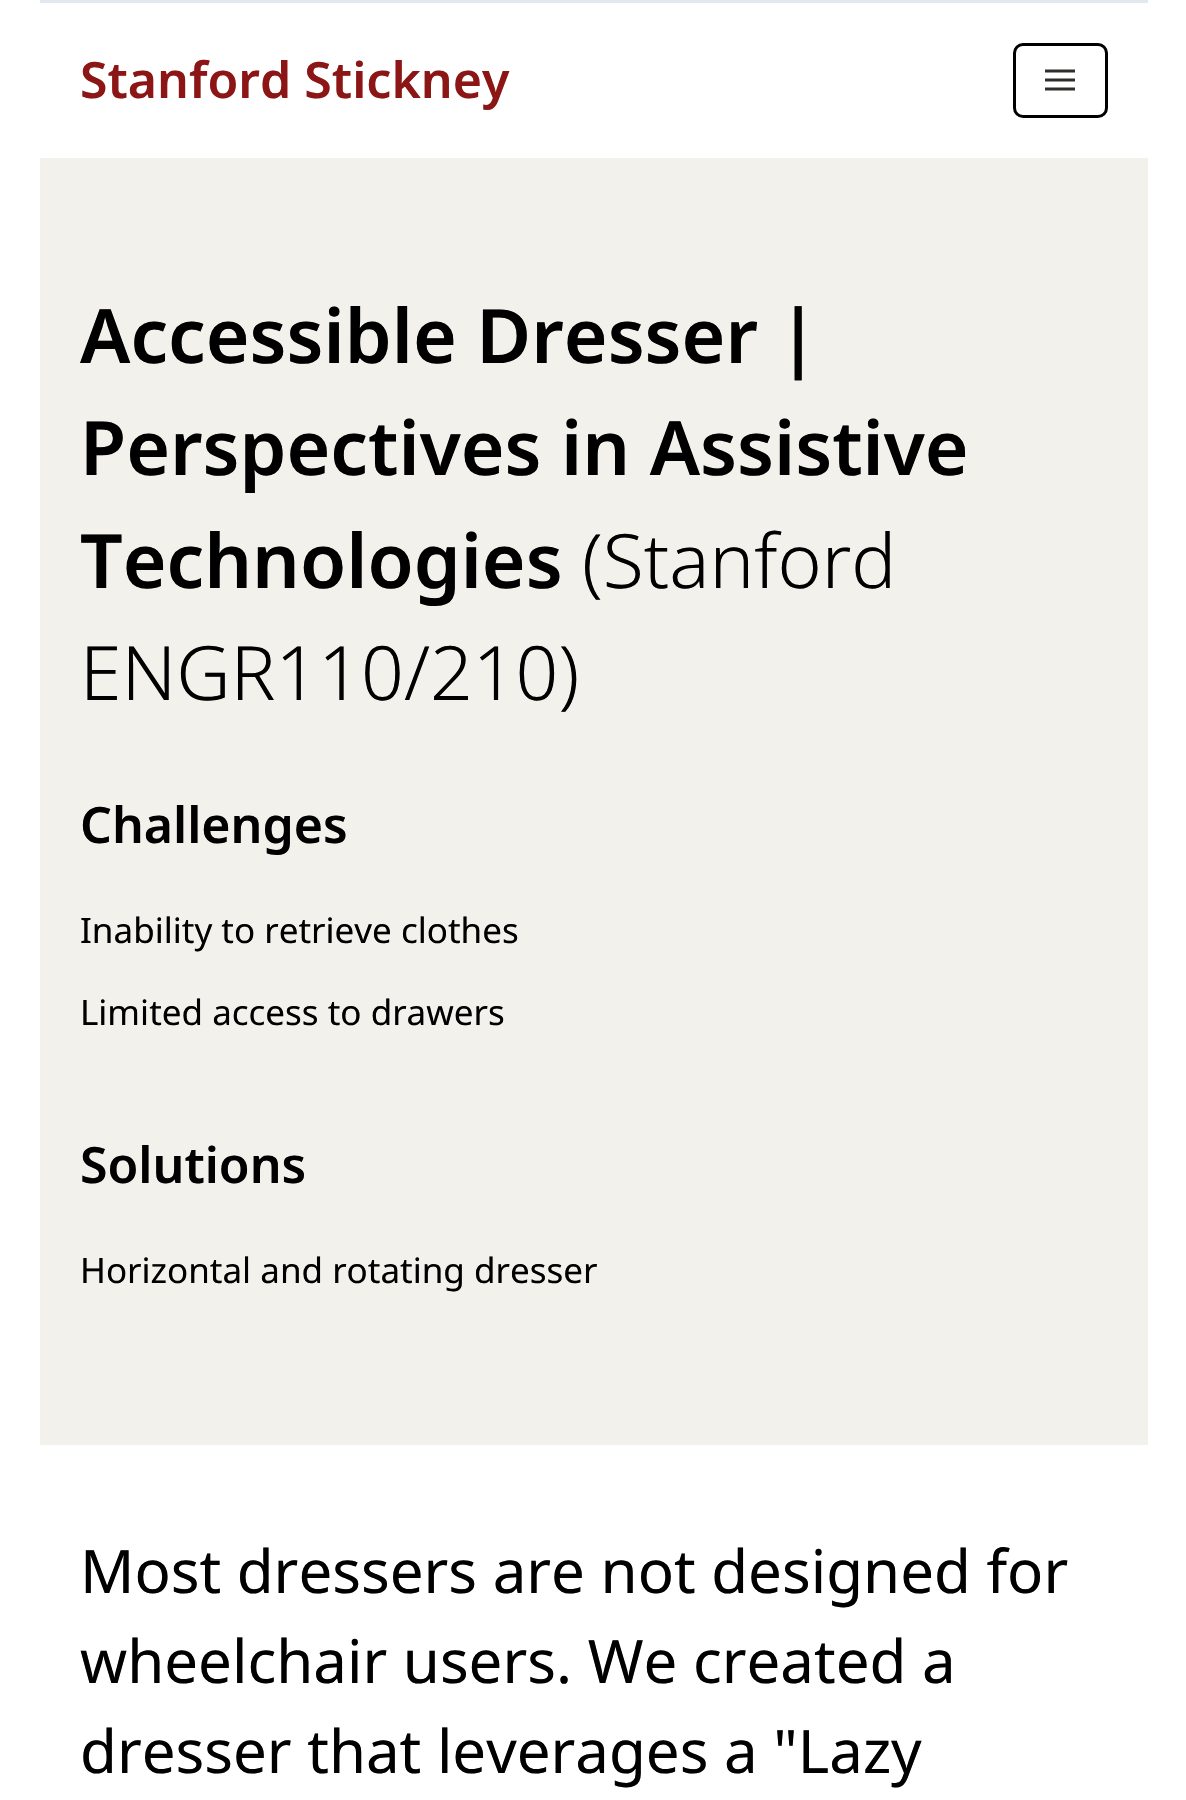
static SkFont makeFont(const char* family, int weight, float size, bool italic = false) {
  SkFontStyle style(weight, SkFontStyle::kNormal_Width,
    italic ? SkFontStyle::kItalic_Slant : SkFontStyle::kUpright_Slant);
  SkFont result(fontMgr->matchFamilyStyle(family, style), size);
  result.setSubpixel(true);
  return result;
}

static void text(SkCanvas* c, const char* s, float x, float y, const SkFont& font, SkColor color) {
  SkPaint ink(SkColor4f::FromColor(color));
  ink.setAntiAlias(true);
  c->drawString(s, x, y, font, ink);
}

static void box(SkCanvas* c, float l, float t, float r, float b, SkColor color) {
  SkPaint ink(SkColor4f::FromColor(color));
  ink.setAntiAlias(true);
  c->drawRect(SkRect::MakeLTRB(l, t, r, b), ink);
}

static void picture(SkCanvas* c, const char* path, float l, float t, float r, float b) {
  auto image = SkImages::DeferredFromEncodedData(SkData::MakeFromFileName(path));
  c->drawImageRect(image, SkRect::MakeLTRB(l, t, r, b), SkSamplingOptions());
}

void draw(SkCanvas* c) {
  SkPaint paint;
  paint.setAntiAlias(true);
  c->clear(0xffffffff);
  box(c, 40, 0, 1148, 3, 0xffe2e8f0);
  SkFont face1 = makeFont("Noto Sans", 600, 50);
  text(c, "Stanford Stickney", 80, 98, face1, 0xff8c1515);
  paint.setStyle(SkPaint::kStroke_Style);
  paint.setStrokeWidth(3);
  paint.setColor(0xff000000);
  c->drawRoundRect(SkRect::MakeLTRB(1014.5f, 44.5f, 1106.5f, 116.5f), 8.5f, 8.5f, paint);
  picture(c, "img_01.png", 1045, 69, 1075, 91);
  box(c, 40, 158, 1148, 1445, 0xfff2f1eb);
  SkFont face2 = makeFont("Noto Sans", 600, 75);
  text(c, "Accessible Dresser |", 80, 363, face2, 0xff000000);
  text(c, "Perspectives in Assistive", 80, 475, face2, 0xff000000);
  text(c, "Technologies", 80, 588, face2, 0xff000000);
  SkFont face3 = makeFont("Noto Sans", 300, 75);
  text(c, "(Stanford", 582, 588, face3, 0xff000000);
  text(c, "ENGR110/210)", 80, 700, face3, 0xff000000);
  text(c, "Challenges", 80, 843, face1, 0xff000000);
  SkFont face4 = makeFont("Noto Sans", 400, 35);
  text(c, "Inability to retrieve clothes", 80, 943, face4, 0xff000000);
  text(c, "Limited access to drawers", 80, 1025, face4, 0xff000000);
  text(c, "Solutions", 80, 1183, face1, 0xff000000);
  text(c, "Horizontal and rotating dresser", 80, 1283, face4, 0xff000000);
  SkFont face5 = makeFont("Noto Sans", 400, 60);
  text(c, "Most dressers are not designed for", 80, 1593, face5, 0xff000000);
  text(c, "wheelchair users. We created a", 80, 1683, face5, 0xff000000);
  text(c, "dresser that leverages a \"Lazy", 80, 1773, face5, 0xff000000);
}
